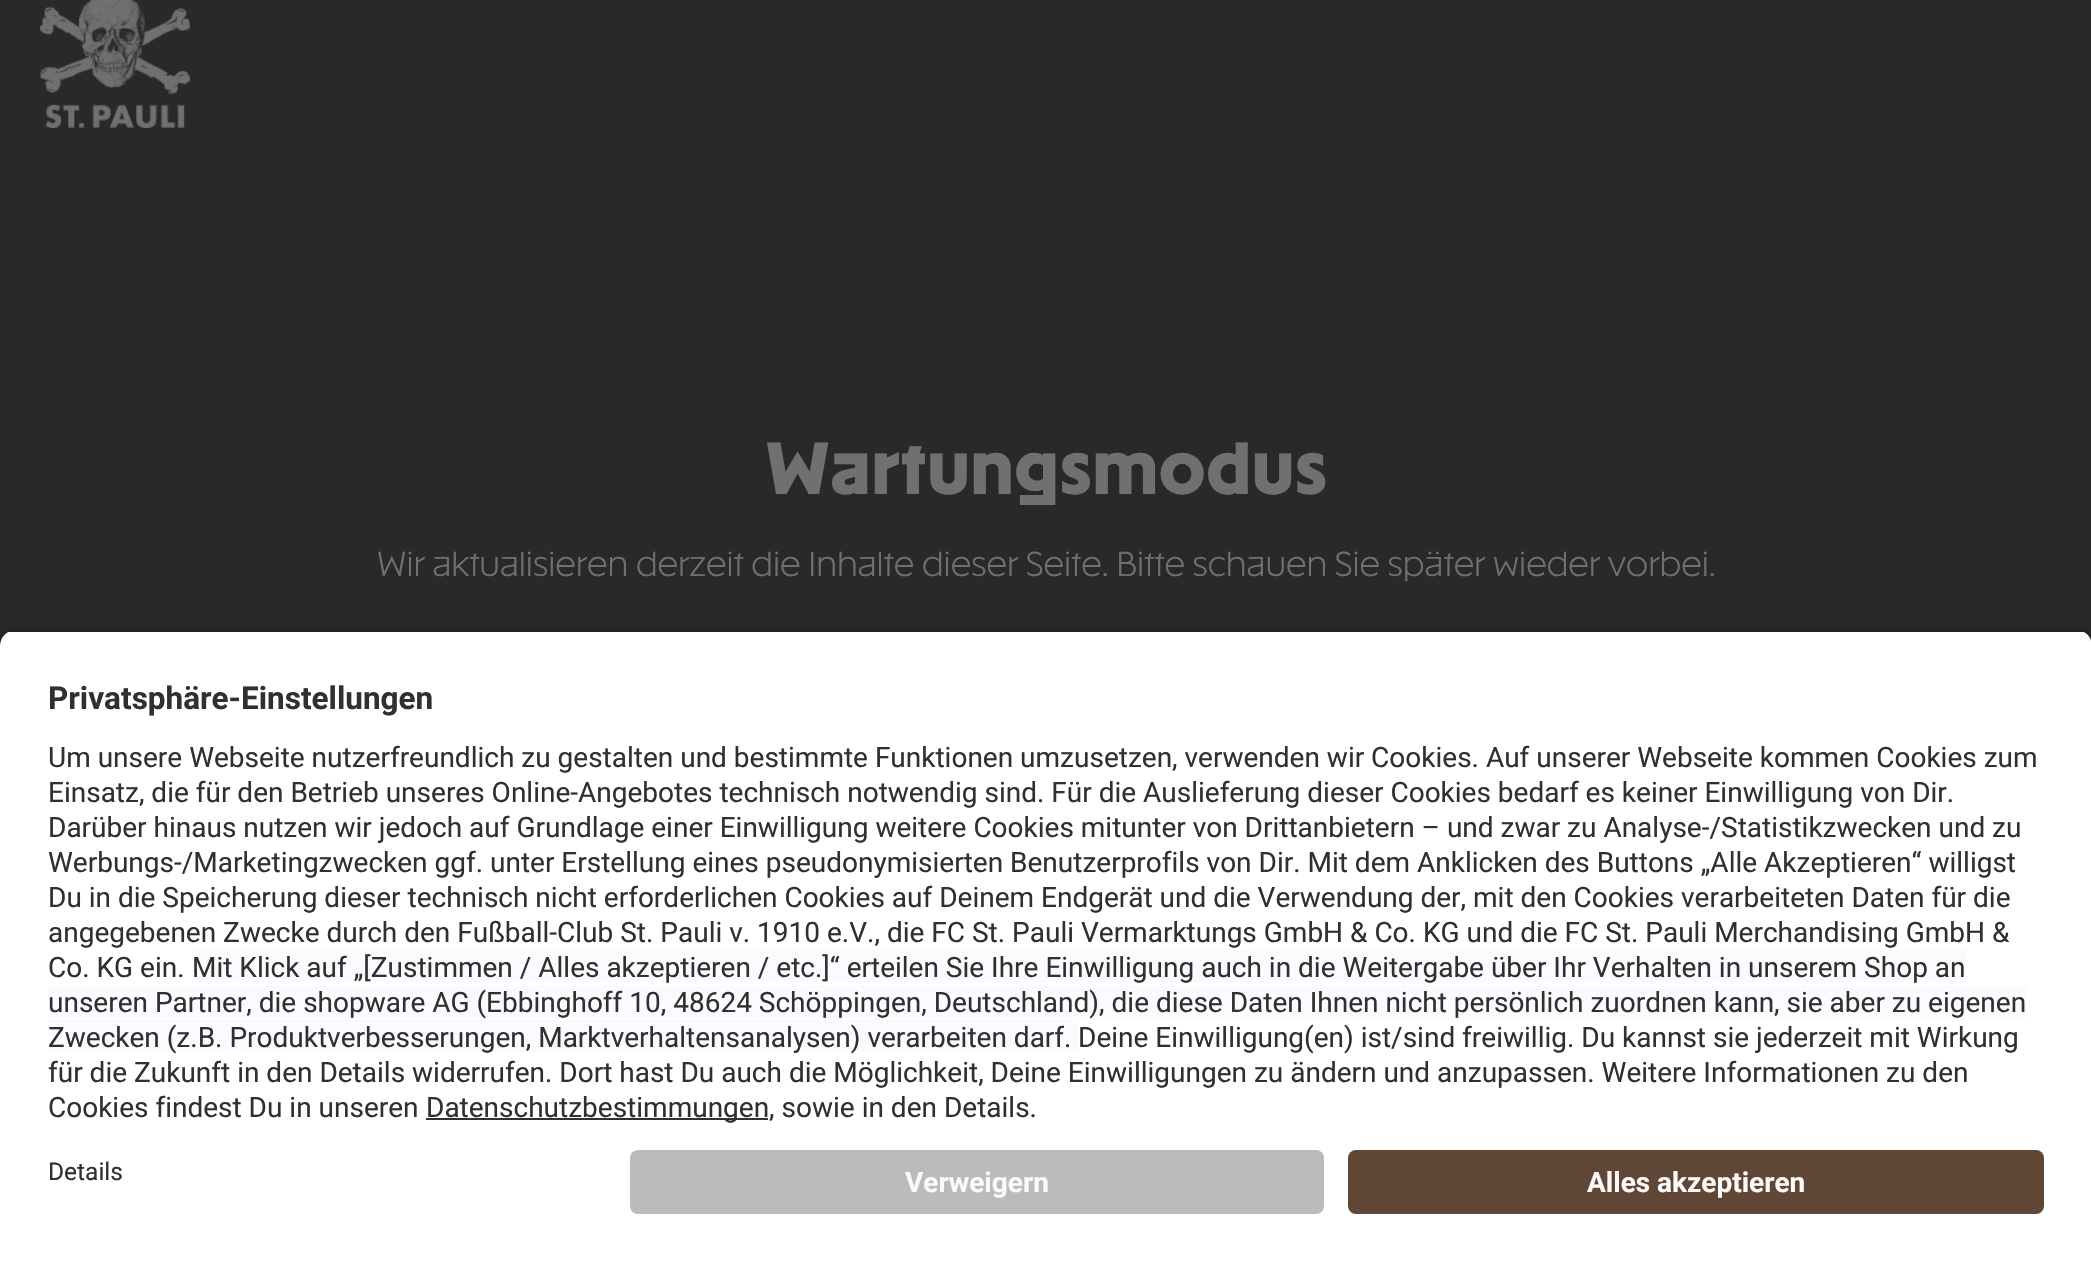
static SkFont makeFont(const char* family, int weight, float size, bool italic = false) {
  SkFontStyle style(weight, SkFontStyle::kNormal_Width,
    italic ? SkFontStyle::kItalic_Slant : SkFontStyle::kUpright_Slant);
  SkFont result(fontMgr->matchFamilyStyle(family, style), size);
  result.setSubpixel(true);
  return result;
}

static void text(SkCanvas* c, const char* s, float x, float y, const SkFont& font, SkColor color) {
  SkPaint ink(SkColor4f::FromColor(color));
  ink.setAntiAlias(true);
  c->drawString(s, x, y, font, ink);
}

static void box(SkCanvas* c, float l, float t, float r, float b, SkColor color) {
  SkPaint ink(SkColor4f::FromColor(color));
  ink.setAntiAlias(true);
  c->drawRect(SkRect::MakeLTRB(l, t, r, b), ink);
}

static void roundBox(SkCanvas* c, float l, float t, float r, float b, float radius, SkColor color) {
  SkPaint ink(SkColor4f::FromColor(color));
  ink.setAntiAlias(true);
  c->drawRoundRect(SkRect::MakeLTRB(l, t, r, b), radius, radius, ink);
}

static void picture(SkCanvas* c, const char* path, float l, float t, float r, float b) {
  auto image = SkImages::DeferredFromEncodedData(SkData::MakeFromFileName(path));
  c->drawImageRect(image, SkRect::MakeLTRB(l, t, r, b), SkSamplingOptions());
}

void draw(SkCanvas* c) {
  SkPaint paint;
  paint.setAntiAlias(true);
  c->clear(0xff292929);
  picture(c, "img_01.png", 40, 0, 190, 128);
  SkFont face1 = makeFont("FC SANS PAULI", 700, 68.25f);
  text(c, "Wartungsmodus", 765, 494, face1, 0xff707070);
  SkFont face2 = makeFont("FC SANS PAULI", 300, 32);
  text(c, "Wir aktualisieren derzeit die Inhalte dieser Seite. Bitte schauen Sie später wieder vorbei.", 377, 576, face2, 0xff707070);
  paint.setColor(0xcc000000);
  paint.setMaskFilter(SkMaskFilter::MakeBlur(kNormal_SkBlurStyle, 7));
  c->drawRoundRect(SkRect::MakeLTRB(0, 636, 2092, 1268), 16, 16, paint);
  paint.setMaskFilter(nullptr);
  c->save();
  c->clipPath(SkPathBuilder().moveTo(16, 630).lineTo(2076, 630).cubicTo(2085, 630, 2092, 637, 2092, 646).lineTo(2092, 1134).lineTo(0, 1134).lineTo(0, 646).cubicTo(0, 637, 7, 630, 16, 630).close().detach(), true);
  box(c, 0, 632, 2091, 1134, 0xffffffff);
  c->restore();
  SkFont face3 = makeFont("Roboto", 700, 31.5f);
  text(c, "Privatsphäre-Einstellungen", 48, 709, face3, 0xff303030);
  SkFont face4 = makeFont("Roboto", 400, 28);
  text(c, "Um unsere Webseite nutzerfreundlich zu gestalten und bestimmte Funktionen umzusetzen, verwenden wir Cookies. Auf unserer Webseite kommen Cookies zum", 48, 767, face4, 0xff303030);
  text(c, "Einsatz, die für den Betrieb unseres Online-Angebotes technisch notwendig sind. Für die Auslieferung dieser Cookies bedarf es keiner Einwilligung von Dir.", 48, 802, face4, 0xff303030);
  text(c, "Darüber hinaus nutzen wir jedoch auf Grundlage einer Einwilligung weitere Cookies mitunter von Drittanbietern – und zwar zu Analyse-/Statistikzwecken und zu", 48, 837, face4, 0xff303030);
  text(c, "Werbungs-/Marketingzwecken ggf. unter Erstellung eines pseudonymisierten Benutzerprofils von Dir. Mit dem Anklicken des Buttons „Alle Akzeptieren“ willigst", 48, 872, face4, 0xff303030);
  text(c, "Du in die Speicherung dieser technisch nicht erforderlichen Cookies auf Deinem Endgerät und die Verwendung der, mit den Cookies verarbeiteten Daten für die", 48, 907, face4, 0xff303030);
  text(c, "angegebenen Zwecke durch den Fußball-Club St. Pauli v. 1910 e.V., die FC St. Pauli Vermarktungs GmbH & Co. KG und die FC St. Pauli Merchandising GmbH &", 48, 942, face4, 0xff303030);
  text(c, "Co. KG ein.", 48, 977, face4, 0xff303030);
  box(c, 192, 950, 1966, 982, 0xfffafbfe);
  text(c, "Mit Klick auf „[Zustimmen / Alles akzeptieren / etc.]“ erteilen Sie Ihre Einwilligung auch in die Weitergabe über Ihr Verhalten in unserem Shop an", 192, 977, face4, 0xff303030);
  box(c, 48, 986, 2026, 1018, 0xfffafbfe);
  text(c, "unseren Partner, die shopware AG (Ebbinghoff 10, 48624 Schöppingen, Deutschland), die diese Daten Ihnen nicht persönlich zuordnen kann, sie aber zu eigenen", 48, 1012, face4, 0xff303030);
  box(c, 48, 1020, 1078, 1052, 0xfffafbfe);
  text(c, "Zwecken (z.B. Produktverbesserungen, Marktverhaltensanalysen) verarbeiten darf.", 48, 1047, face4, 0xff303030);
  text(c, "Deine Einwilligung(en) ist/sind freiwillig. Du kannst sie jederzeit mit Wirkung", 1078, 1047, face4, 0xff303030);
  text(c, "für die Zukunft in den Details widerrufen. Dort hast Du auch die Möglichkeit, Deine Einwilligungen zu ändern und anzupassen. Weitere Informationen zu den", 48, 1082, face4, 0xff303030);
  text(c, "Cookies findest Du in unseren", 48, 1117, face4, 0xff303030);
  box(c, 426, 1118, 768, 1120, 0xff303030);
  text(c, "Datenschutzbestimmungen, sowie in den Details.", 426, 1117, face4, 0xff303030);
  box(c, 0, 1134, 2091, 1262, 0xffffffff);
  SkFont face5 = makeFont("Roboto", 400, 24.5f);
  text(c, "Details", 48, 1180, face5, 0xff303030);
  roundBox(c, 630, 1150, 1324, 1214, 8, 0xffbbbbbb);
  SkFont face6 = makeFont("Roboto", 700, 28);
  text(c, "Verweigern", 905, 1192, face6, 0xfffafafa);
  roundBox(c, 1348, 1150, 2044, 1214, 8, 0xff604735);
  text(c, "Alles akzeptieren", 1587, 1192, face6, 0xfffafafa);
}
